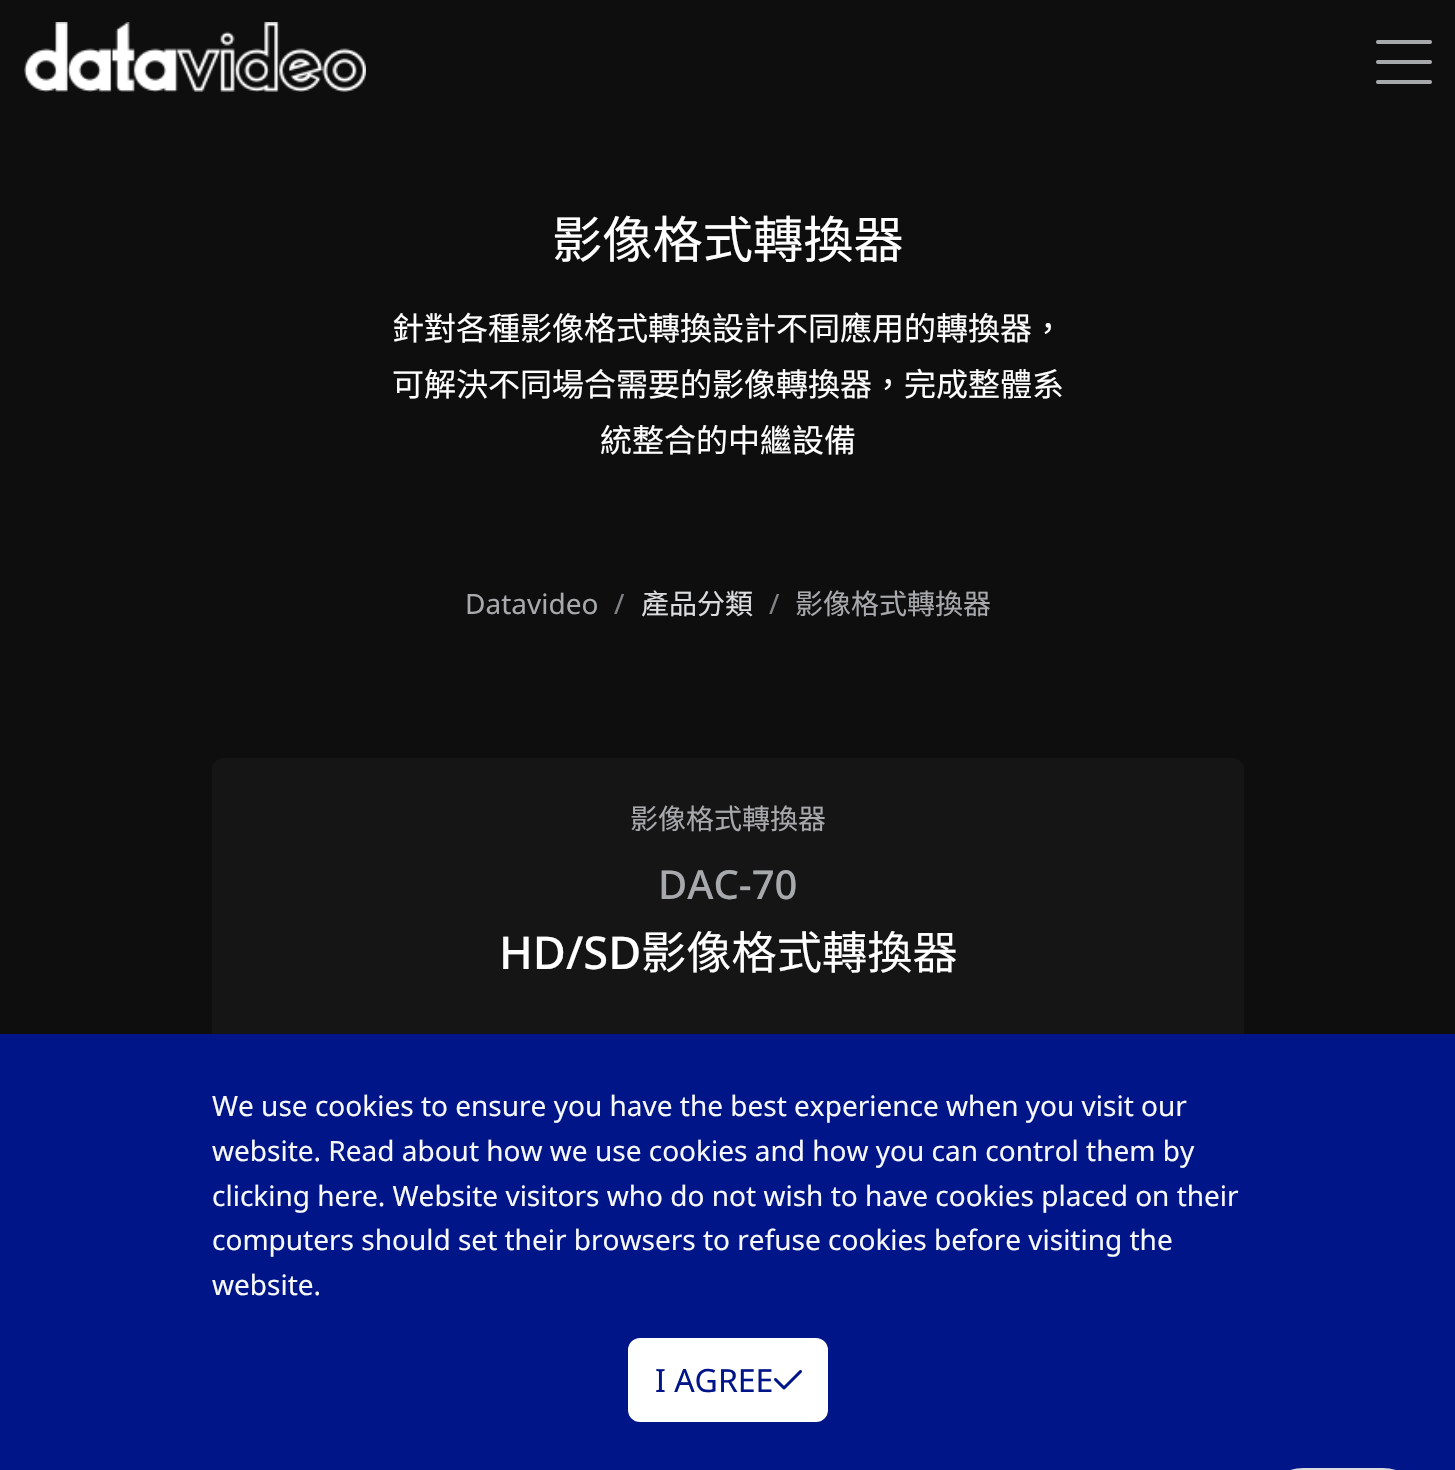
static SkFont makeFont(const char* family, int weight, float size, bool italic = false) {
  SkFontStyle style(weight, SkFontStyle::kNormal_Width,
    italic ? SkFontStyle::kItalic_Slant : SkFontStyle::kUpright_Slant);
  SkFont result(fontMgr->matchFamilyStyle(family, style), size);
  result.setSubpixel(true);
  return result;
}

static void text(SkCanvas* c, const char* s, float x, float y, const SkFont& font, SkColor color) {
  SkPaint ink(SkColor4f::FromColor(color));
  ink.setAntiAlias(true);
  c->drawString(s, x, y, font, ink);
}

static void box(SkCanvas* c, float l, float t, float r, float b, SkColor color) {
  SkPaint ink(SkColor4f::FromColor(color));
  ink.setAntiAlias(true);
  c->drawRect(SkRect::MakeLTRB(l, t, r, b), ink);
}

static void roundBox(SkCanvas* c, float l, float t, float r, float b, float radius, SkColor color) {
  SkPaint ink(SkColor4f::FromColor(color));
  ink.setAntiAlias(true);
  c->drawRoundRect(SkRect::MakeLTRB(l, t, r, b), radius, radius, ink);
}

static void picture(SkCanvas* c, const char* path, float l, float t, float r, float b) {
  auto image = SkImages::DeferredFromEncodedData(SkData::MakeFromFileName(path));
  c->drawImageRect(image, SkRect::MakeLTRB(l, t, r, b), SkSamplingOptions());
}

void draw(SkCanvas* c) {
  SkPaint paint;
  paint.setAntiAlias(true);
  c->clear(0xff0e0e0e);
  picture(c, "img_01.png", 24, 22, 366, 92);
  picture(c, "img_02.png", 1376, 40, 1432, 84);
  SkFont face1 = makeFont("Noto Sans CJK HK", 400, 50.25f);
  text(c, "影像格式轉換器", 552, 258, face1, 0xffffffff);
  SkFont face2 = makeFont("Noto Sans CJK HK", 400, 32);
  text(c, "針對各種影像格式轉換設計不同應用的轉換器，", 392, 340, face2, 0xffffffff);
  text(c, "可解決不同場合需要的影像轉換器，完成整體系", 392, 396, face2, 0xffffffff);
  text(c, "統整合的中繼設備", 600, 452, face2, 0xffffffff);
  SkFont face3 = makeFont("Noto Sans", 400, 28);
  text(c, "Datavideo", 465, 614, face3, 0xffa7a9ac);
  text(c, "/", 614, 614, face3, 0xff818285);
  SkFont face4 = makeFont("Noto Sans CJK HK", 400, 28);
  text(c, "產品分類", 641, 614, face4, 0xffdbdcde);
  text(c, "/", 769, 614, face3, 0xff818285);
  text(c, "影像格式轉換器", 795, 614, face4, 0xffa7a9ac);
  roundBox(c, 212, 758, 1244, 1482, 12, 0xff151515);
  text(c, "影像格式轉換器", 630, 829, face4, 0xffa7a9ac);
  SkFont face5 = makeFont("Noto Sans", 500, 40);
  text(c, "DAC-70", 658, 899, face5, 0xffa7a9ac);
  SkFont face6 = makeFont("Noto Sans", 500, 45.25f);
  text(c, "HD/SD", 499, 969, face6, 0xffffffff);
  SkFont face7 = makeFont("Noto Sans CJK HK", 400, 45.25f);
  text(c, "影像格式轉換器", 641, 969, face7, 0xffffffff);
  box(c, 0, 1034, 1455, 1470, 0xff001588);
  text(c, "We use cookies to ensure you have the best experience when you visit our", 212, 1116, face3, 0xfff8f9fa);
  text(c, "website. Read about how we use cookies and how you can control them by", 212, 1161, face3, 0xfff8f9fa);
  text(c, "clicking here. Website visitors who do not wish to have cookies placed on their", 212, 1206, face3, 0xfff8f9fa);
  text(c, "computers should set their browsers to refuse cookies before visiting the", 212, 1250, face3, 0xfff8f9fa);
  text(c, "website.", 212, 1295, face3, 0xfff8f9fa);
  paint.setColor(0xffffffff);
  c->drawRoundRect(SkRect::MakeLTRB(629, 1339, 827, 1421), 11, 11, paint);
  paint.setStyle(SkPaint::kStroke_Style);
  paint.setStrokeWidth(2);
  c->drawRoundRect(SkRect::MakeLTRB(629, 1339, 827, 1421), 11, 11, paint);
  SkFont face8 = makeFont("Noto Sans", 400, 32);
  text(c, "I AGREE", 655, 1392, face8, 0xff001588);
  picture(c, "img_03.png", 774, 1370, 802, 1390);
  paint.setColor(0xffdbdade);
  c->drawRoundRect(SkRect::MakeLTRB(1261, 1469, 1425, 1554), 82, 82, paint);
}
